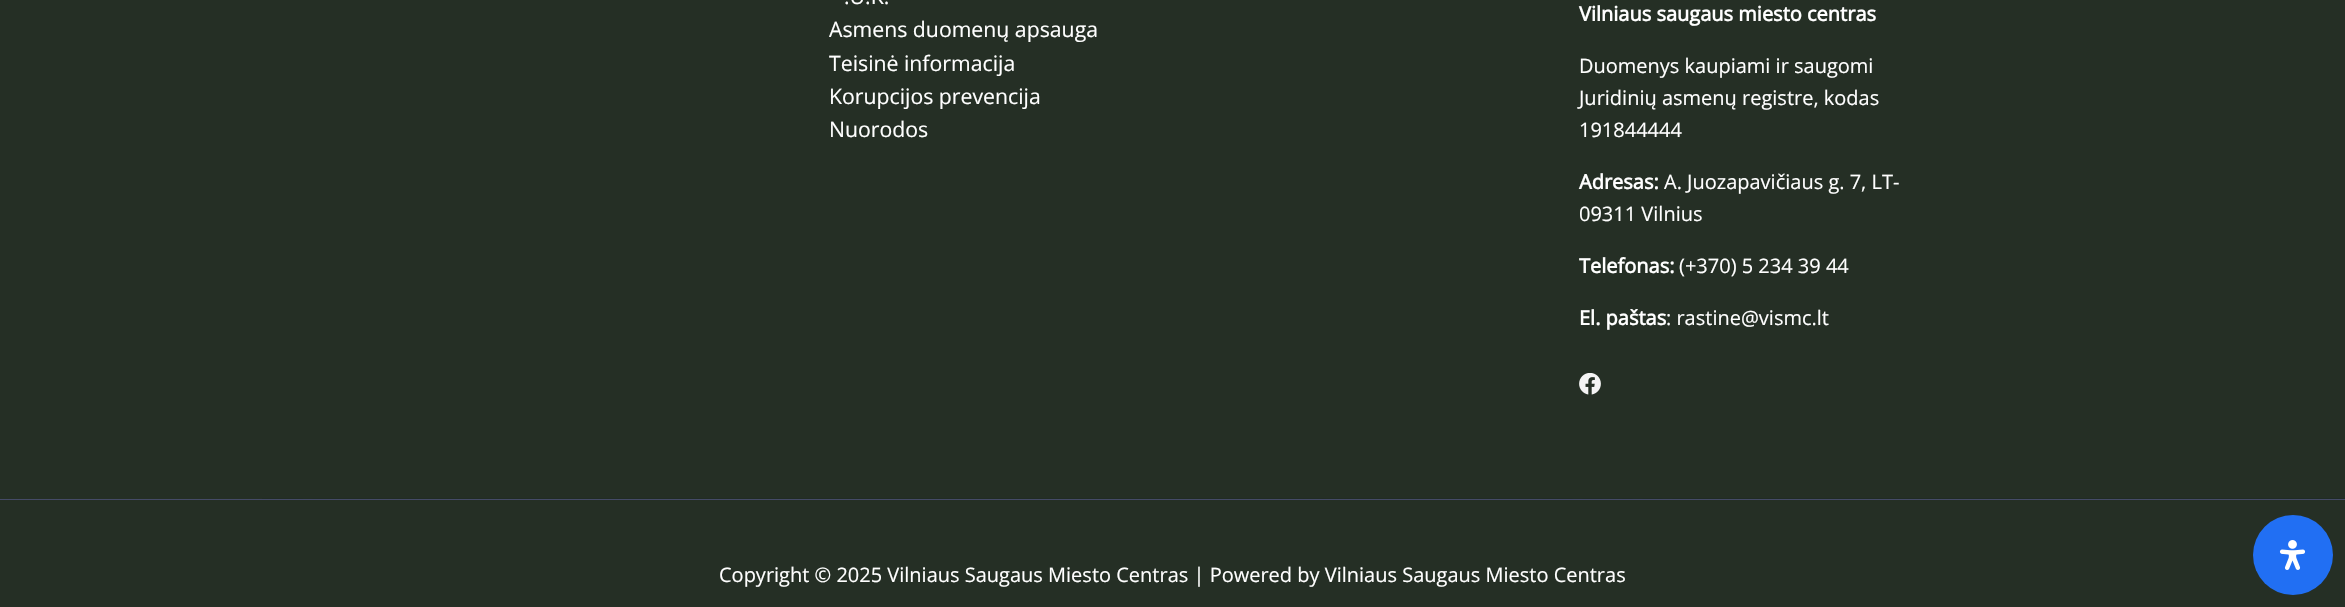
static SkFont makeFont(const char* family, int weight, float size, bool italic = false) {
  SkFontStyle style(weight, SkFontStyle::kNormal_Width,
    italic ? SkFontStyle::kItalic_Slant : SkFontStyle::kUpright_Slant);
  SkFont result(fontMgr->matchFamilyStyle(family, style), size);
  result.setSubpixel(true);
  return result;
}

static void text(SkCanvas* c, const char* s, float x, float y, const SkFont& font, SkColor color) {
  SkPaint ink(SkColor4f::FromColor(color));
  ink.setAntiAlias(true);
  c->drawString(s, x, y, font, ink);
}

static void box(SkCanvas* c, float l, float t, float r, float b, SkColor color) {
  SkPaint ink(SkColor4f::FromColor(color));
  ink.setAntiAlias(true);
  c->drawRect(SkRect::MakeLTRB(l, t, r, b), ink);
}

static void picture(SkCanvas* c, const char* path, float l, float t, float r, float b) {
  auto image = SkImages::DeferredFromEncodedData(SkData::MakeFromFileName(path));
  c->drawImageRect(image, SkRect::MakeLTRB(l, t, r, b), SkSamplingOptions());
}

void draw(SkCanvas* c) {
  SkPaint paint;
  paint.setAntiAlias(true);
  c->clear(0xff252f25);
  picture(c, "img_01.png", 262, 498, 2345, 499);
  SkFont face1 = makeFont("Open Sans", 400, 21.25f);
  text(c, ".U.K.", 844, 4, face1, 0xffffffff);
  text(c, "Asmens duomenų apsauga", 829, 37, face1, 0xffffffff);
  text(c, "Teisinė informacija", 829, 71, face1, 0xffffffff);
  text(c, "Korupcijos prevencija", 829, 104, face1, 0xffffffff);
  text(c, "Nuorodos", 829, 137, face1, 0xffffffff);
  SkFont face2 = makeFont("Open Sans", 700, 20);
  text(c, "Vilniaus saugaus miesto centras", 1579, 21, face2, 0xffffffff);
  SkFont face3 = makeFont("Open Sans", 400, 20);
  text(c, "Duomenys kaupiami ir saugomi", 1579, 73, face3, 0xffffffff);
  text(c, "Juridinių asmenų registre, kodas", 1579, 105, face3, 0xffffffff);
  text(c, "191844444", 1579, 137, face3, 0xffffffff);
  text(c, "Adresas:", 1579, 189, face2, 0xffffffff);
  text(c, "A. Juozapavičiaus g. 7, LT-", 1664, 189, face3, 0xffffffff);
  text(c, "09311 Vilnius", 1579, 221, face3, 0xffffffff);
  text(c, "Telefonas:", 1579, 273, face2, 0xffffffff);
  text(c, "(+370) 5 234 39 44", 1679, 273, face3, 0xffffffff);
  text(c, "El. paštas", 1579, 325, face2, 0xffffffff);
  text(c, ": rastine@vismc.lt", 1666, 325, face3, 0xffffffff);
  picture(c, "img_02.png", 1579, 373, 1601, 395);
  box(c, 0, 499, 2345, 500, 0xff454b67);
  text(c, "Copyright © 2025 Vilniaus Saugaus Miesto Centras | Powered by Vilniaus Saugaus Miesto Centras", 719, 582, face3, 0xffffffff);
  paint.setColor(0xff216ff3);
  c->drawCircle(2293, 555, 40, paint);
  picture(c, "img_03.png", 2279, 540, 2306, 570);
}
